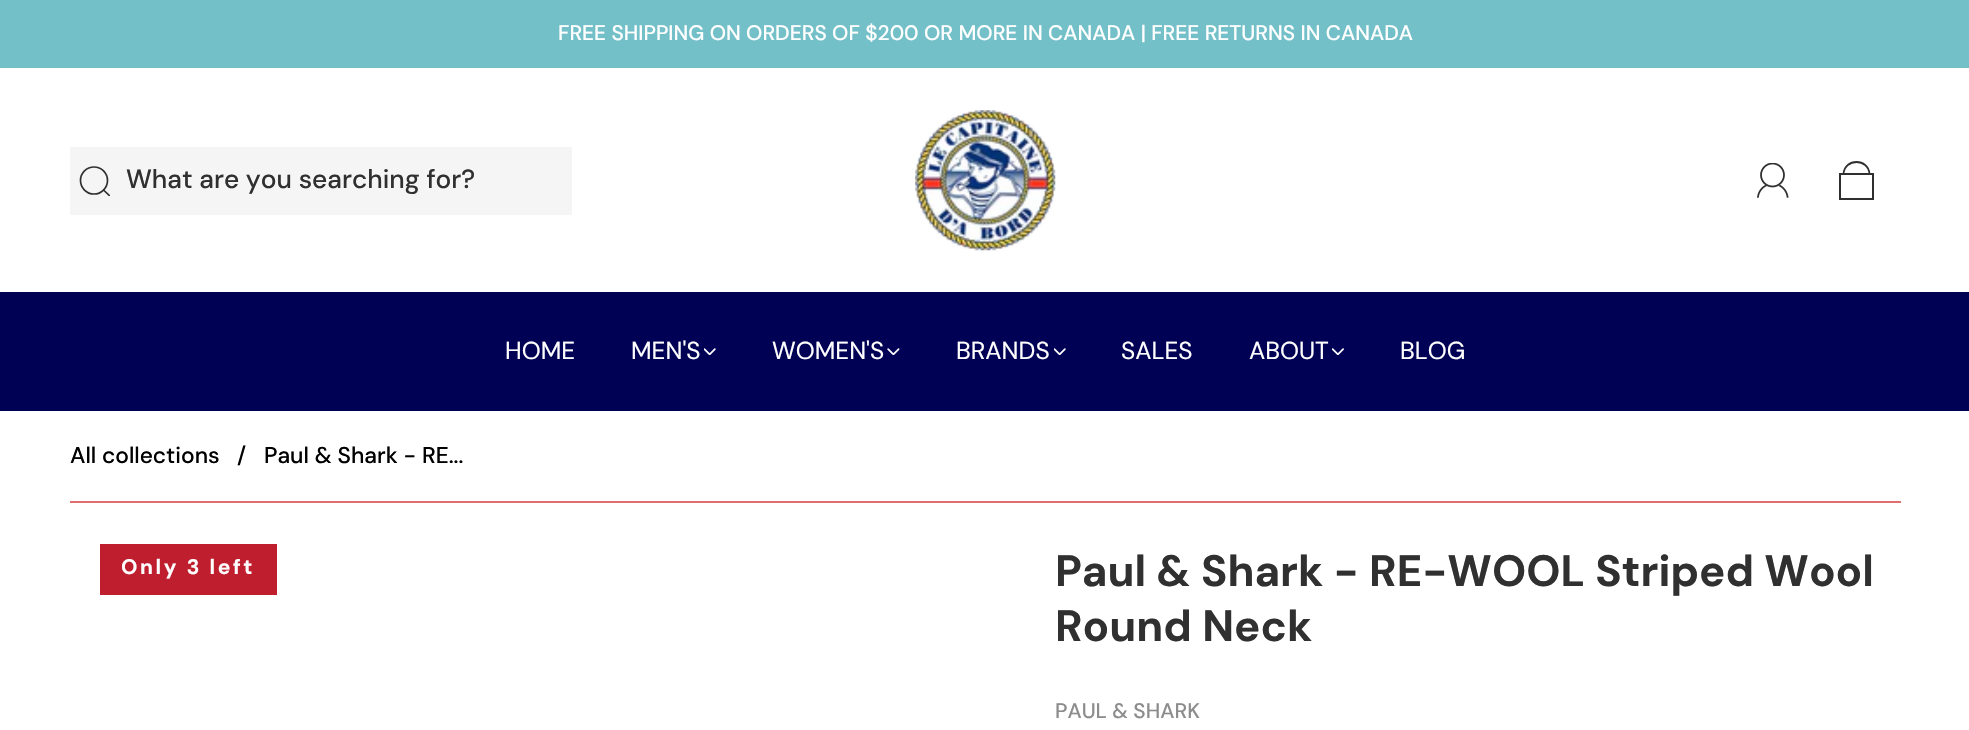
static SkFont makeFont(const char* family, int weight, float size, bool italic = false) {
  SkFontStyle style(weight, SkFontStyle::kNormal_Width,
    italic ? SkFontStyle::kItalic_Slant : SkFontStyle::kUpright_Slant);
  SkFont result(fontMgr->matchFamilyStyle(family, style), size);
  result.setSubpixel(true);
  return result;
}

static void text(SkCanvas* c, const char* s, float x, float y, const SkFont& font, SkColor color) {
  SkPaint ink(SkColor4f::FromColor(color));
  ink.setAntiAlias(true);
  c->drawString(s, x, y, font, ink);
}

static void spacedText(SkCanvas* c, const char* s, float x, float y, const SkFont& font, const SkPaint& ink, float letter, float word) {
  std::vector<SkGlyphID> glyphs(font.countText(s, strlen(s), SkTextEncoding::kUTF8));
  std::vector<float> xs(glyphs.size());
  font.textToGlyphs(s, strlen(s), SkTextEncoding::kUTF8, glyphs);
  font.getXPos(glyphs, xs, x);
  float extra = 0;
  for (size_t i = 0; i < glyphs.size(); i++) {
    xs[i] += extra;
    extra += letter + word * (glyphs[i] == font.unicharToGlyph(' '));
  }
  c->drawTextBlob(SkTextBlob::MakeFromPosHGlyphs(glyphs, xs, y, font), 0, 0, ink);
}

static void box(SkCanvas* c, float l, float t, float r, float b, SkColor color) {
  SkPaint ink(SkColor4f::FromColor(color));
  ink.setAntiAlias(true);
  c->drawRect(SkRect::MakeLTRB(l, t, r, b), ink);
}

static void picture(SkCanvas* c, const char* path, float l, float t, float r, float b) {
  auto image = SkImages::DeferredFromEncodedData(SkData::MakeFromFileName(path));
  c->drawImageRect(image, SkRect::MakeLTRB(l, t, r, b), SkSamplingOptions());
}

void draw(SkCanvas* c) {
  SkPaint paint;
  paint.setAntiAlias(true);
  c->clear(0xffffffff);
  box(c, 0, 0, 1969, 68, 0xff74c0c9);
  SkFont face1 = makeFont("DM Sans", 500, 21);
  text(c, "FREE SHIPPING ON ORDERS OF $200 OR MORE IN CANADA | FREE RETURNS IN CANADA", 558, 40, face1, 0xffffffff);
  box(c, 70, 147, 572, 215, 0xfff5f5f5);
  paint.setStyle(SkPaint::kStroke_Style);
  paint.setStrokeWidth(1.7f);
  paint.setColor(0xff303030);
  c->drawCircle(94, 180.5f, 13.5f, paint);
  c->save();
  c->clipRect(SkRect::MakeLTRB(79, 166, 110, 196));
  c->drawPath(SkPathBuilder().moveTo(103, 189.5f).lineTo(112.5f, 198.5f).detach(), paint);
  c->restore();
  SkFont face2 = makeFont("DM Sans", 500, 26.25f);
  text(c, "What are you searching for?", 126, 188, face2, 0xff303030);
  picture(c, "img_01.png", 915, 110, 1056, 251);
  picture(c, "img_02.png", 1757, 163, 1789, 198);
  paint.setStrokeWidth(1.8f);
  c->drawPath(SkPathBuilder().moveTo(1843.5f, 174).cubicTo(1844.5f, 158, 1868.5f, 158, 1869.5f, 174).close().detach(), paint);
  paint.setStrokeWidth(2);
  c->drawRect(SkRect::MakeLTRB(1840, 174, 1873, 199), paint);
  box(c, 0, 292, 1969, 411, 0xff000055);
  SkFont face3 = makeFont("DM Sans", 400, 24.5f);
  text(c, "HOME", 505, 359, face3, 0xffffffff);
  text(c, "MEN'S", 631, 359, face3, 0xffffffff);
  picture(c, "img_03.png", 704, 348, 716, 355);
  text(c, "WOMEN'S", 772, 359, face3, 0xffffffff);
  picture(c, "img_04.png", 887, 348, 900, 355);
  text(c, "BRANDS", 956, 359, face3, 0xffffffff);
  picture(c, "img_03.png", 1054, 348, 1066, 355);
  text(c, "SALES", 1121, 359, face3, 0xffffffff);
  text(c, "ABOUT", 1249, 359, face3, 0xffffffff);
  picture(c, "img_05.png", 1332, 348, 1344, 355);
  text(c, "BLOG", 1400, 359, face3, 0xffffffff);
  box(c, 70, 501, 1901, 503, 0xffdf6e6e);
  SkFont face4 = makeFont("DM Sans", 500, 22.75f);
  text(c, "All collections", 70, 463, face4, 0xff000000);
  text(c, "/", 237, 463, face4, 0xff000000);
  text(c, "Paul & Shark - RE...", 264, 463, face4, 0xff000000);
  box(c, 100, 544, 277, 595, 0xffbe1e2d);
  SkFont face5 = makeFont("DM Sans", 700, 21);
  paint.setStyle(SkPaint::kFill_Style);
  paint.setColor(0xffffffff);
  spacedText(c, "Only 3 left", 121, 574, face5, paint, 2.6f, 0);
  SkFont face6 = makeFont("DM Sans", 700, 43.75f);
  text(c, "Paul & Shark - RE-WOOL Striped Wool", 1055, 586, face6, 0xff303030);
  text(c, "Round Neck", 1055, 641, face6, 0xff303030);
  text(c, "PAUL & SHARK", 1055, 718, face1, 0xff8c8c8c);
}
